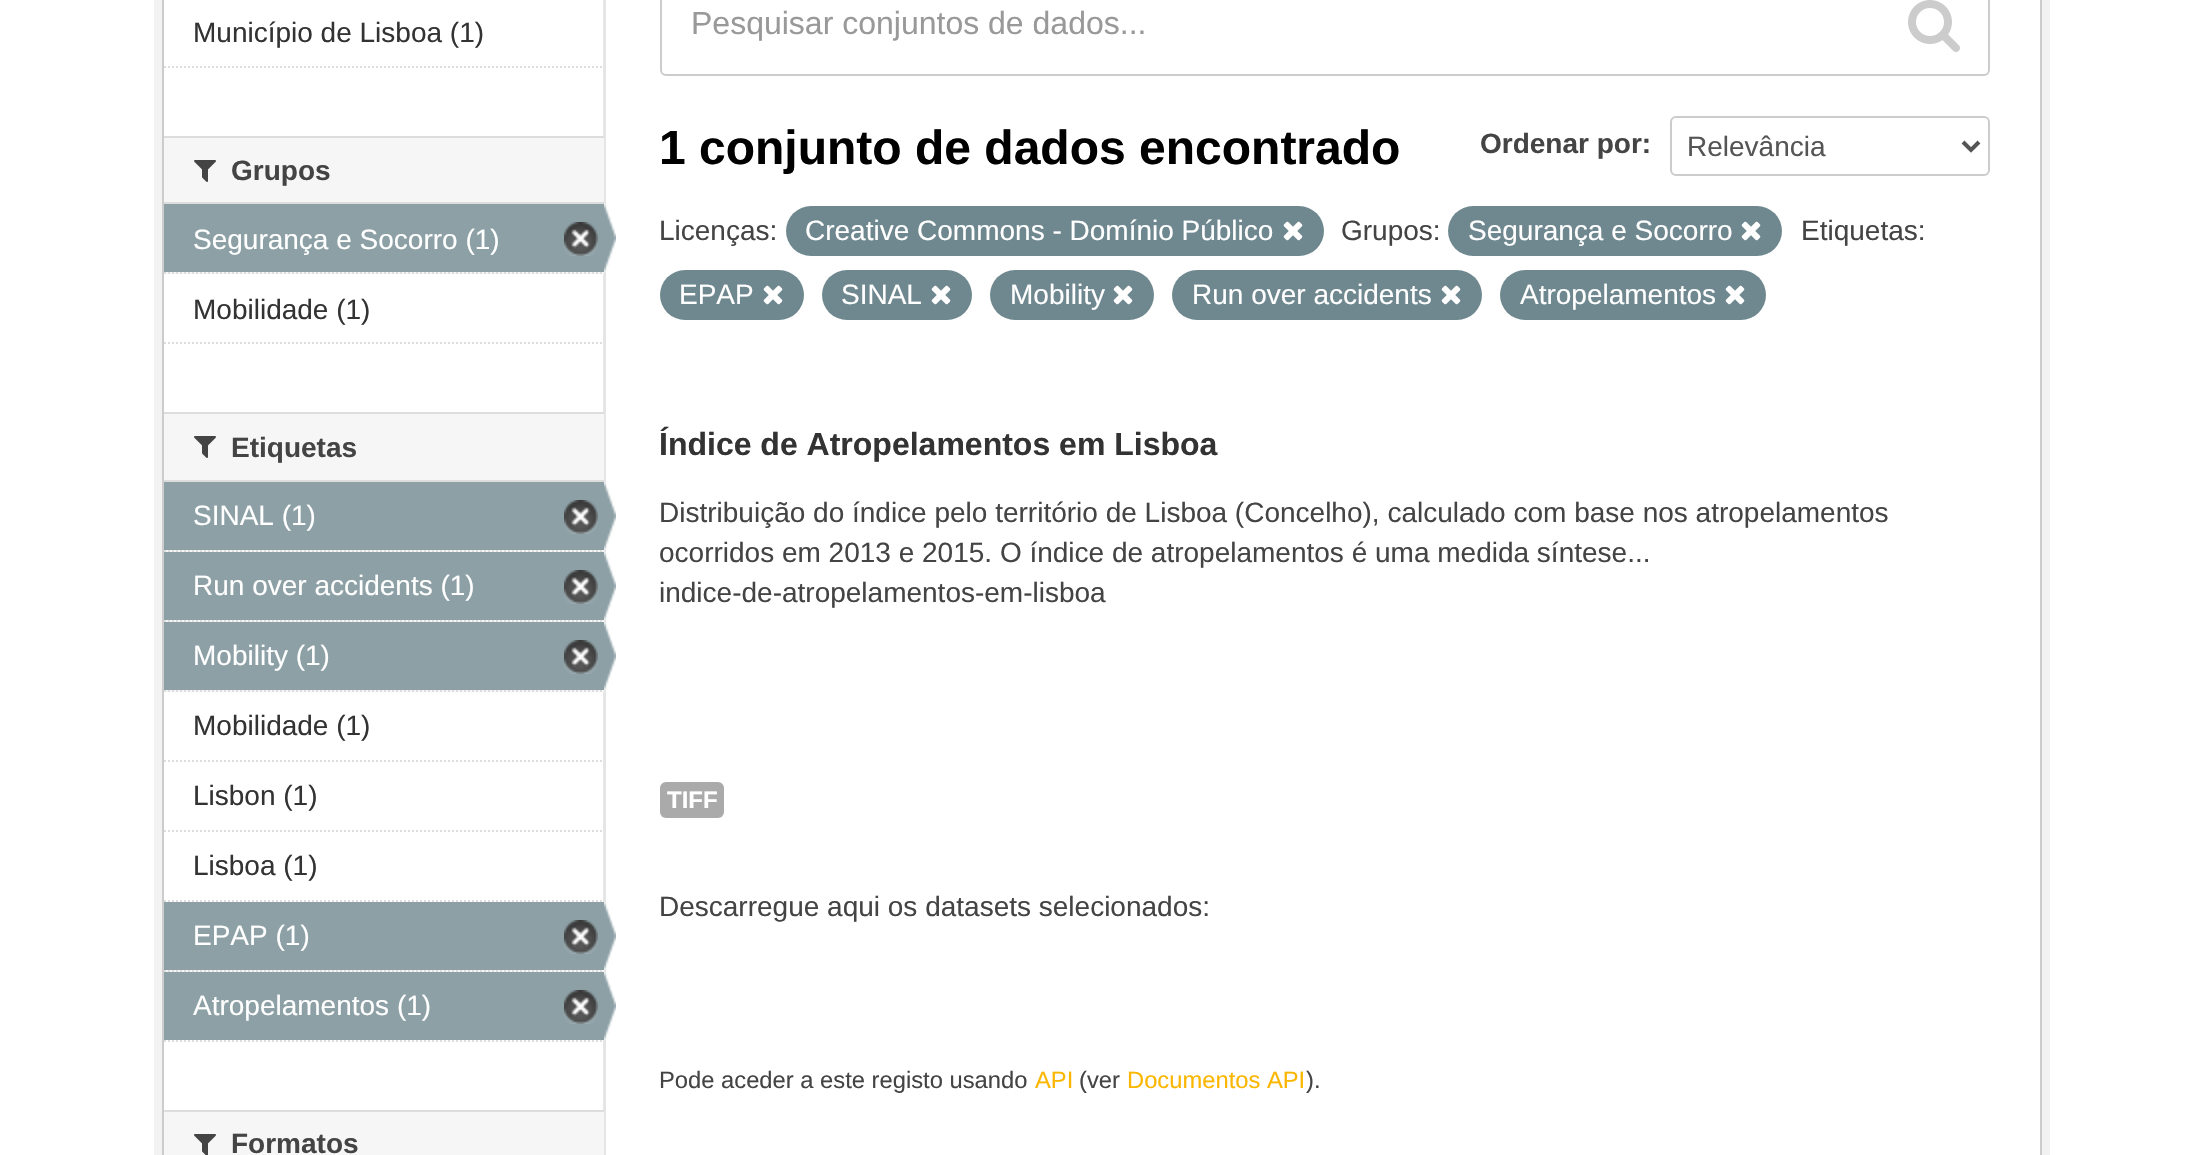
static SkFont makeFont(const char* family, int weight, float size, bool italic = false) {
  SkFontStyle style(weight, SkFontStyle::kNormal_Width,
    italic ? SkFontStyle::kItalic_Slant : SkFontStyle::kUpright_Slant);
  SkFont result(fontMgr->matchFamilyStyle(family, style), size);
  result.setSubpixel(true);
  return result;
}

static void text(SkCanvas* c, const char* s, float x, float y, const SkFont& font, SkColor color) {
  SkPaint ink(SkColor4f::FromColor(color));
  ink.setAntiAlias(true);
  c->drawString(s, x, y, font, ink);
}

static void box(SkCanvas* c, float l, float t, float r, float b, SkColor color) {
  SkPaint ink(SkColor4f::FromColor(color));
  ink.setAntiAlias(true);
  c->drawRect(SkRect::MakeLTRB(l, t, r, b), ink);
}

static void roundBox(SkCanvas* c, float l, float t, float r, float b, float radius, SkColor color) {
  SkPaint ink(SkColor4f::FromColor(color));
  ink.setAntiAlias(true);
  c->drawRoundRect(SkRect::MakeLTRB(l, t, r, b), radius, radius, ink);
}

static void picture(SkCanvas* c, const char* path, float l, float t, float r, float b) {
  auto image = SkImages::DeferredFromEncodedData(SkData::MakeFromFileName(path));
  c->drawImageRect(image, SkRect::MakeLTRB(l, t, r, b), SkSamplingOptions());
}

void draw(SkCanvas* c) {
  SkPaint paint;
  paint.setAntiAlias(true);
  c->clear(0xffffffff);
  paint.setStyle(SkPaint::kStroke_Style);
  paint.setStrokeWidth(8);
  paint.setColor(0xfff2f2f2);
  c->drawRect(SkRect::MakeLTRB(158, -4, 2046, 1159), paint);
  box(c, 603, 0, 606, 1155, 0xffe5e5e5);
  paint.setStrokeWidth(2);
  paint.setColor(0xffcccccc);
  c->drawRect(SkRect::MakeLTRB(163, -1, 2041, 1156), paint);
  SkFont face1 = makeFont("Liberation Sans", 400, 28);
  text(c, "Município de Lisboa (1)", 193, 42, face1, 0xff333333);
  paint.setColor(0xffdddddd);
  paint.setPathEffect(SkDashPathEffect::Make({{2, 2}}, 0));
  c->drawPath(SkPathBuilder().moveTo(164, 67).lineTo(604, 67).detach(), paint);
  paint.setPathEffect(nullptr);
  box(c, 164, 138, 604, 202, 0xfff6f6f6);
  box(c, 164, 136, 604, 138, 0xffdddddd);
  box(c, 164, 202, 604, 204, 0xffdddddd);
  picture(c, "img_01.png", 194, 160, 216, 182);
  SkFont face2 = makeFont("Liberation Sans", 700, 28);
  text(c, "Grupos", 231, 180, face2, 0xff444444);
  box(c, 166, 272, 604, 274, 0xfff6f6f6);
  paint.setPathEffect(SkDashPathEffect::Make({{2, 2}}, 0));
  c->drawPath(SkPathBuilder().moveTo(164, 273).lineTo(604, 273).detach(), paint);
  paint.setPathEffect(nullptr);
  box(c, 164, 204, 604, 272, 0xff8ca0a6);
  text(c, "Segurança e Socorro (1)", 193, 249, face1, 0xffffffff);
  picture(c, "img_02.png", 564, 222, 598, 256);
  picture(c, "img_03.png", 604, 204, 616, 272);
  text(c, "Mobilidade (1)", 193, 319, face1, 0xff333333);
  paint.setPathEffect(SkDashPathEffect::Make({{2, 2}}, 0));
  c->drawPath(SkPathBuilder().moveTo(164, 343).lineTo(604, 343).detach(), paint);
  paint.setPathEffect(nullptr);
  box(c, 164, 414, 604, 480, 0xfff6f6f6);
  box(c, 164, 412, 604, 414, 0xffdddddd);
  box(c, 164, 480, 604, 482, 0xffdddddd);
  picture(c, "img_01.png", 194, 436, 216, 458);
  text(c, "Etiquetas", 231, 457, face2, 0xff444444);
  box(c, 166, 550, 604, 552, 0xfff6f6f6);
  paint.setPathEffect(SkDashPathEffect::Make({{2, 2}}, 0));
  c->drawPath(SkPathBuilder().moveTo(164, 551).lineTo(604, 551).detach(), paint);
  paint.setPathEffect(nullptr);
  box(c, 164, 482, 604, 550, 0xff8ca0a6);
  text(c, "SINAL (1)", 193, 525, face1, 0xffffffff);
  picture(c, "img_02.png", 564, 500, 598, 534);
  picture(c, "img_03.png", 604, 482, 616, 550);
  box(c, 166, 620, 604, 622, 0xfff6f6f6);
  paint.setPathEffect(SkDashPathEffect::Make({{2, 2}}, 0));
  c->drawPath(SkPathBuilder().moveTo(164, 621).lineTo(604, 621).detach(), paint);
  paint.setPathEffect(nullptr);
  box(c, 164, 552, 604, 620, 0xff8ca0a6);
  text(c, "Run over accidents (1)", 193, 595, face1, 0xffffffff);
  picture(c, "img_02.png", 564, 570, 598, 604);
  picture(c, "img_03.png", 604, 552, 616, 620);
  box(c, 166, 690, 604, 692, 0xfff6f6f6);
  paint.setPathEffect(SkDashPathEffect::Make({{2, 2}}, 0));
  c->drawPath(SkPathBuilder().moveTo(164, 691).lineTo(604, 691).detach(), paint);
  paint.setPathEffect(nullptr);
  box(c, 164, 622, 604, 690, 0xff8ca0a6);
  text(c, "Mobility (1)", 193, 665, face1, 0xffffffff);
  picture(c, "img_02.png", 564, 640, 598, 674);
  picture(c, "img_03.png", 604, 622, 616, 690);
  paint.setPathEffect(SkDashPathEffect::Make({{2, 2}}, 0));
  c->drawPath(SkPathBuilder().moveTo(164, 761).lineTo(604, 761).detach(), paint);
  paint.setPathEffect(nullptr);
  text(c, "Mobilidade (1)", 193, 735, face1, 0xff333333);
  paint.setPathEffect(SkDashPathEffect::Make({{2, 2}}, 0));
  c->drawPath(SkPathBuilder().moveTo(164, 831).lineTo(604, 831).detach(), paint);
  paint.setPathEffect(nullptr);
  text(c, "Lisbon (1)", 193, 805, face1, 0xff333333);
  paint.setPathEffect(SkDashPathEffect::Make({{2, 2}}, 0));
  c->drawPath(SkPathBuilder().moveTo(164, 901).lineTo(604, 901).detach(), paint);
  paint.setPathEffect(nullptr);
  text(c, "Lisboa (1)", 193, 875, face1, 0xff333333);
  box(c, 166, 970, 604, 972, 0xfff6f6f6);
  paint.setPathEffect(SkDashPathEffect::Make({{2, 2}}, 0));
  c->drawPath(SkPathBuilder().moveTo(164, 971).lineTo(604, 971).detach(), paint);
  paint.setPathEffect(nullptr);
  box(c, 164, 902, 604, 970, 0xff8ca0a6);
  text(c, "EPAP (1)", 193, 945, face1, 0xffffffff);
  picture(c, "img_02.png", 564, 920, 598, 954);
  picture(c, "img_03.png", 604, 902, 616, 970);
  box(c, 164, 972, 604, 1040, 0xff8ca0a6);
  text(c, "Atropelamentos (1)", 193, 1015, face1, 0xffffffff);
  picture(c, "img_02.png", 564, 990, 598, 1024);
  picture(c, "img_03.png", 604, 972, 616, 1040);
  paint.setPathEffect(SkDashPathEffect::Make({{2, 2}}, 0));
  c->drawPath(SkPathBuilder().moveTo(164, 1041).lineTo(604, 1041).detach(), paint);
  paint.setPathEffect(nullptr);
  box(c, 164, 1112, 604, 1155, 0xfff6f6f6);
  box(c, 164, 1110, 604, 1112, 0xffdddddd);
  picture(c, "img_04.png", 194, 1134, 216, 1155);
  text(c, "Formatos", 231, 1153, face2, 0xff444444);
  paint.setColor(0xffcccccc);
  c->drawRoundRect(SkRect::MakeLTRB(661, -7, 1989, 75), 5, 5, paint);
  SkFont face3 = makeFont("Liberation Sans", 400, 32);
  text(c, "Pesquisar conjuntos de dados...", 691, 34, face3, 0xff999999);
  picture(c, "img_05.png", 1908, 0, 1960, 52);
  SkFont face4 = makeFont("Liberation Sans", 700, 48);
  text(c, "1 conjunto de dados encontrado", 659, 164, face4, 0xff000000);
  text(c, "Ordenar por:", 1480, 153, face2, 0xff444444);
  c->drawRoundRect(SkRect::MakeLTRB(1671, 117, 1989, 175), 5, 5, paint);
  paint.setStrokeWidth(4);
  paint.setColor(0xff555555);
  c->drawPath(SkPathBuilder().moveTo(1963, 142).lineTo(1971, 150).lineTo(1979, 142).detach(), paint);
  text(c, "Relevância", 1687, 156, face1, 0xff555555);
  text(c, "Licenças:", 659, 240, face1, 0xff444444);
  roundBox(c, 786, 206, 1324, 256, 25, 0xff6f8890);
  text(c, "Creative Commons - Domínio Público", 805, 240, face1, 0xffffffff);
  picture(c, "img_06.png", 1283, 221, 1303, 241);
  text(c, "Grupos:", 1341, 240, face1, 0xff444444);
  roundBox(c, 1448, 206, 1782, 256, 25, 0xff6f8890);
  text(c, "Segurança e Socorro", 1468, 240, face1, 0xffffffff);
  picture(c, "img_06.png", 1741, 221, 1761, 241);
  text(c, "Etiquetas:", 1801, 240, face1, 0xff444444);
  roundBox(c, 660, 270, 804, 320, 25, 0xff6f8890);
  text(c, "EPAP", 679, 304, face1, 0xffffffff);
  picture(c, "img_06.png", 763, 285, 783, 305);
  roundBox(c, 822, 270, 972, 320, 25, 0xff6f8890);
  text(c, "SINAL", 841, 304, face1, 0xffffffff);
  picture(c, "img_06.png", 931, 285, 951, 305);
  roundBox(c, 990, 270, 1154, 320, 25, 0xff6f8890);
  text(c, "Mobility", 1010, 304, face1, 0xffffffff);
  picture(c, "img_06.png", 1113, 285, 1133, 305);
  roundBox(c, 1172, 270, 1482, 320, 25, 0xff6f8890);
  text(c, "Run over accidents", 1192, 304, face1, 0xffffffff);
  picture(c, "img_06.png", 1441, 285, 1461, 305);
  roundBox(c, 1500, 270, 1766, 320, 25, 0xff6f8890);
  text(c, "Atropelamentos", 1520, 304, face1, 0xffffffff);
  picture(c, "img_06.png", 1725, 285, 1745, 305);
  SkFont face5 = makeFont("Liberation Sans", 700, 32);
  text(c, "Índice de Atropelamentos em Lisboa", 659, 455, face5, 0xff333333);
  text(c, "Distribuição do índice pelo território de Lisboa (Concelho), calculado com base nos atropelamentos", 659, 522, face1, 0xff444444);
  text(c, "ocorridos em 2013 e 2015. O índice de atropelamentos é uma medida síntese...", 659, 562, face1, 0xff444444);
  text(c, "indice-de-atropelamentos-em-lisboa", 659, 602, face1, 0xff444444);
  roundBox(c, 660, 782, 724, 818, 6, 0xffaaaaaa);
  SkFont face6 = makeFont("Liberation Sans", 700, 24);
  text(c, "TIFF", 667, 808, face6, 0xffffffff);
  text(c, "Descarregue aqui os datasets selecionados:", 659, 916, face1, 0xff444444);
  SkFont face7 = makeFont("Liberation Sans", 400, 23.75f);
  text(c, "Pode aceder a este registo usando", 659, 1088, face7, 0xff444444);
  text(c, "API", 1035, 1088, face7, 0xfffbb600);
  text(c, "(ver", 1079, 1088, face7, 0xff444444);
  text(c, "Documentos API", 1127, 1088, face7, 0xfffbb600);
  text(c, ").", 1306, 1088, face7, 0xff444444);
}
